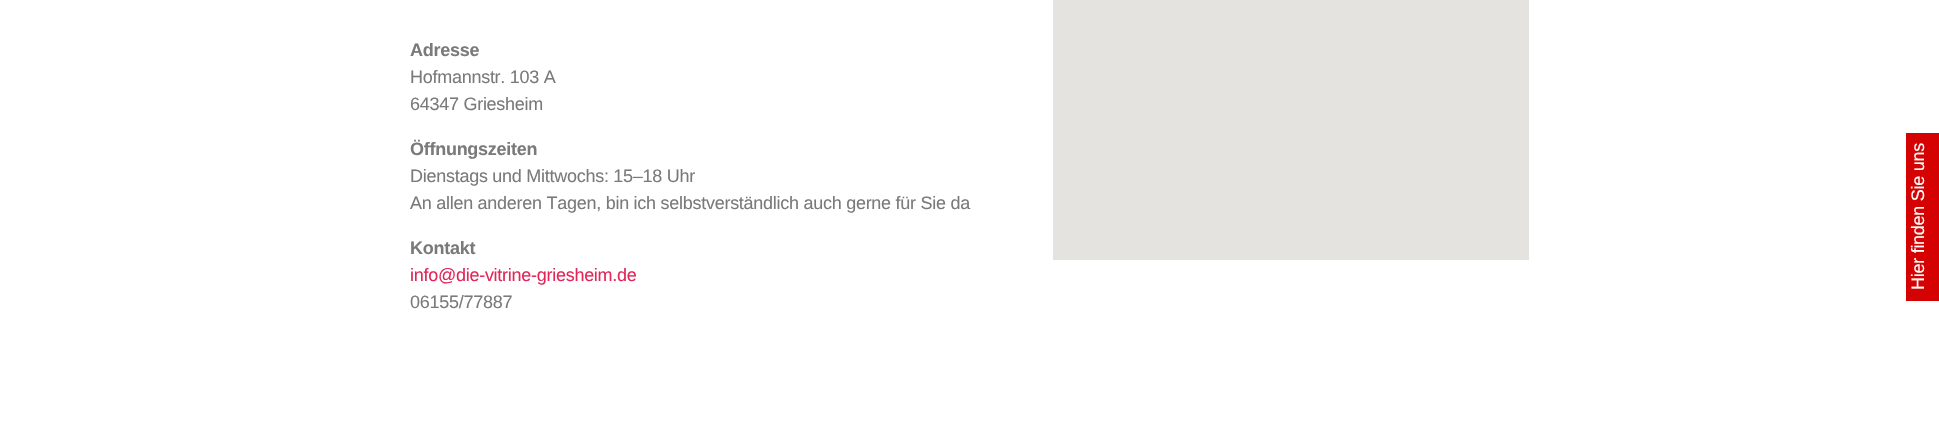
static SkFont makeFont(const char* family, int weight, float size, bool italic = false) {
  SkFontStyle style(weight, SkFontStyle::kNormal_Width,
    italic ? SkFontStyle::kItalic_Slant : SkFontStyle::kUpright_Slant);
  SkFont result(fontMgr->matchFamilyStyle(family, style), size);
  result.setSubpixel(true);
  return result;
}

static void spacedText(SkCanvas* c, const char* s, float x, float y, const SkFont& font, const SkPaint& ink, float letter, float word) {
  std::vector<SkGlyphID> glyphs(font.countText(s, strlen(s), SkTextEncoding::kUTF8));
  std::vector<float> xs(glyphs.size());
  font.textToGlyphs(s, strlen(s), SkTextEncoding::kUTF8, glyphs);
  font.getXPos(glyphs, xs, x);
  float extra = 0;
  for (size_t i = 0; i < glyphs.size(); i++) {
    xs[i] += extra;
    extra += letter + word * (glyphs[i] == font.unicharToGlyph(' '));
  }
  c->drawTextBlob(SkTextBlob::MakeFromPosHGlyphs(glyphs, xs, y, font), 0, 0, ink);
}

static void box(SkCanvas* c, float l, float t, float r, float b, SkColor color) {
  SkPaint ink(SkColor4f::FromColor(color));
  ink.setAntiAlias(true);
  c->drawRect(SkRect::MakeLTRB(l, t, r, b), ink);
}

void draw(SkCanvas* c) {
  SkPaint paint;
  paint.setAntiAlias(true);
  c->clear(0xffffffff);
  SkFont face1 = makeFont("Liberation Sans", 700, 18);
  paint.setColor(0xff7a7a7a);
  spacedText(c, "Adresse", 410, 56, face1, paint, -0.27f, 0);
  SkFont face2 = makeFont("Liberation Sans", 400, 18);
  spacedText(c, "Hofmannstr. 103 A", 410, 83, face2, paint, -0.27f, 0);
  spacedText(c, "64347 Griesheim", 410, 110, face2, paint, -0.27f, 0);
  spacedText(c, "Öffnungszeiten", 410, 155, face1, paint, -0.27f, 0);
  spacedText(c, "Dienstags und Mittwochs: 15–18 Uhr", 410, 182, face2, paint, -0.27f, 0);
  spacedText(c, "An allen anderen Tagen, bin ich selbstverständlich auch gerne für Sie da", 410, 209, face2, paint, -0.27f, 0);
  spacedText(c, "Kontakt", 410, 254, face1, paint, -0.27f, 0);
  paint.setColor(0xffe22658);
  spacedText(c, "info@die-vitrine-griesheim.de", 410, 281, face2, paint, -0.27f, 0);
  paint.setColor(0xff7a7a7a);
  spacedText(c, "06155/77887", 410, 308, face2, paint, -0.27f, 0);
  box(c, 1053, 0, 1529, 260, 0xffe5e3df);
  box(c, 1906, 133, 1939, 301, 0xffd40202);
  paint.setColor(0xffffffff);
  c->save();
  c->rotate(-90, 1924, 290);
  spacedText(c, "Hier finden Sie uns", 1924, 290, face2, paint, -0.27f, 0);
  c->restore();
}
